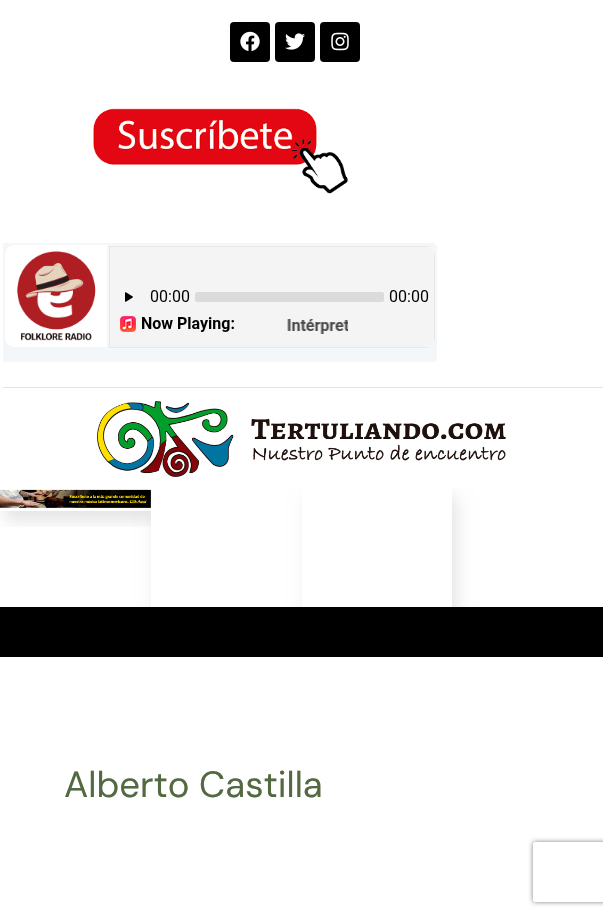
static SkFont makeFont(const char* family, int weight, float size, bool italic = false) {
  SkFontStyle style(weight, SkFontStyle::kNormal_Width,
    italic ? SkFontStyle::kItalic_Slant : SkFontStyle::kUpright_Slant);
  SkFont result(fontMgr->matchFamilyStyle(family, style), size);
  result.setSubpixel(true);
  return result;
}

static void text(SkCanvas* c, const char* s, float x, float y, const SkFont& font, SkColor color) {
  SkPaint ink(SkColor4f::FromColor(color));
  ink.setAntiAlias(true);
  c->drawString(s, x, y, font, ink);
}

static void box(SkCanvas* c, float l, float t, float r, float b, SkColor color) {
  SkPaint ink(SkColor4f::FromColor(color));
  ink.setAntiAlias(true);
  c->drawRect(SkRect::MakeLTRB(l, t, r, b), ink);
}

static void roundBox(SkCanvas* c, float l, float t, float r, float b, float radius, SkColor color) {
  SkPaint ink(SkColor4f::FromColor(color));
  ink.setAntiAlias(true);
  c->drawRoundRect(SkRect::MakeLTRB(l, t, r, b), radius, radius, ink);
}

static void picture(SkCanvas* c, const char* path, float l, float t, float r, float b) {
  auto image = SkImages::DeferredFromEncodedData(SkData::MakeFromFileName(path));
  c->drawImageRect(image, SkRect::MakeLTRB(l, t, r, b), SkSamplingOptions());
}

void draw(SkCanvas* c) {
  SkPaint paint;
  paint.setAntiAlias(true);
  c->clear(0xffffffff);
  box(c, 3, 387, 603, 388, 0xffe2e2e2);
  roundBox(c, 230, 22, 270, 62, 4, 0xff000000);
  picture(c, "img_01.png", 240, 31, 260, 51);
  roundBox(c, 275, 22, 315, 62, 4, 0xff000000);
  picture(c, "img_02.png", 285, 33, 305, 50);
  roundBox(c, 320, 22, 360, 62, 4, 0xff000000);
  picture(c, "img_03.png", 331, 32, 349, 51);
  picture(c, "img_04.png", 93, 108, 348, 194);
  paint.setColor(0xfff4f7f9);
  c->drawPath(SkPathBuilder().moveTo(3, 243).lineTo(432, 243).cubicTo(435, 243, 437, 245, 437, 248).lineTo(437, 357).cubicTo(437, 360, 435, 362, 432, 362).lineTo(3, 362).close().detach(), paint);
  picture(c, "img_05.png", 5, 245, 435, 348);
  picture(c, "img_06.png", 97, 401, 506, 477);
  c->save();
  c->clipRect(SkRect::MakeLTRB(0, 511, 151, 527));
  paint.setColor(0x1a000000);
  paint.setMaskFilter(SkMaskFilter::MakeBlur(kNormal_SkBlurStyle, 7.5f));
  c->drawRect(SkRect::MakeLTRB(5, 497, 156, 521), paint);
  paint.setMaskFilter(nullptr);
  c->restore();
  picture(c, "img_07.png", 0, 489, 151, 508);
  box(c, 0, 607, 603, 657, 0xff000000);
  c->save();
  c->clipRect(SkRect::MakeLTRB(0, 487, 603, 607));
  paint.setMaskFilter(SkMaskFilter::MakeBlur(kNormal_SkBlurStyle, 7.5f));
  c->drawRect(SkRect::MakeLTRB(156, 497, 307, 617), paint);
  paint.setMaskFilter(nullptr);
  c->restore();
  box(c, 151, 487, 302, 607, 0xffffffff);
  c->save();
  c->clipRect(SkRect::MakeLTRB(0, 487, 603, 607));
  paint.setMaskFilter(SkMaskFilter::MakeBlur(kNormal_SkBlurStyle, 7.5f));
  c->drawRect(SkRect::MakeLTRB(307, 497, 457, 617), paint);
  paint.setMaskFilter(nullptr);
  c->restore();
  box(c, 302, 487, 452, 607, 0xffffffff);
  SkFont face1 = makeFont("DM Sans", 400, 36.5f);
  text(c, "Alberto Castilla", 64, 797, face1, 0xff536942);
  c->save();
  c->clipPath(SkPathBuilder(SkPathFillType::kEvenOdd).moveTo(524, 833).lineTo(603, 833).lineTo(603, 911).lineTo(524, 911).close().moveTo(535, 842).lineTo(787, 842).cubicTo(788, 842, 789, 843, 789, 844).lineTo(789, 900).cubicTo(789, 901, 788, 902, 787, 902).lineTo(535, 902).cubicTo(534, 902, 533, 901, 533, 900).lineTo(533, 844).cubicTo(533, 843, 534, 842, 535, 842).close().detach(), true);
  paint.setColor(0xff808080);
  paint.setMaskFilter(SkMaskFilter::MakeBlur(kNormal_SkBlurStyle, 2.5f));
  c->drawRoundRect(SkRect::MakeLTRB(533, 842, 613, 902), 2, 2, paint);
  paint.setMaskFilter(nullptr);
  c->restore();
}
